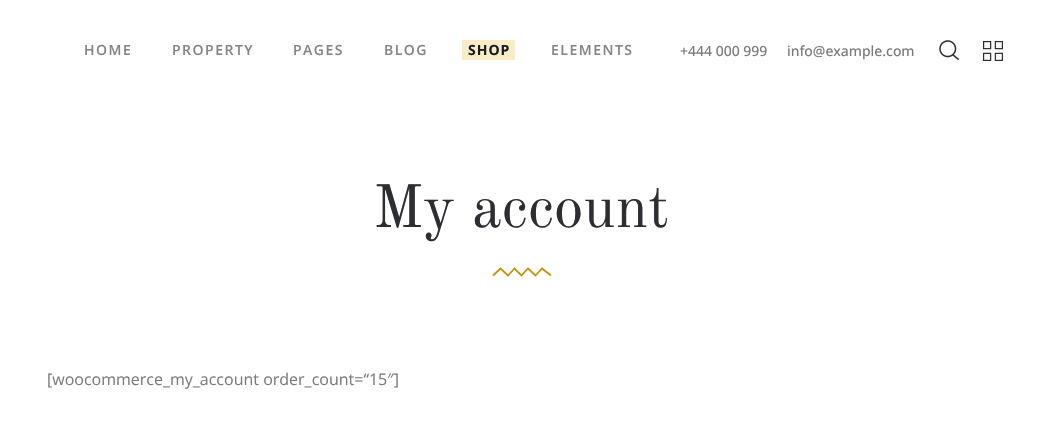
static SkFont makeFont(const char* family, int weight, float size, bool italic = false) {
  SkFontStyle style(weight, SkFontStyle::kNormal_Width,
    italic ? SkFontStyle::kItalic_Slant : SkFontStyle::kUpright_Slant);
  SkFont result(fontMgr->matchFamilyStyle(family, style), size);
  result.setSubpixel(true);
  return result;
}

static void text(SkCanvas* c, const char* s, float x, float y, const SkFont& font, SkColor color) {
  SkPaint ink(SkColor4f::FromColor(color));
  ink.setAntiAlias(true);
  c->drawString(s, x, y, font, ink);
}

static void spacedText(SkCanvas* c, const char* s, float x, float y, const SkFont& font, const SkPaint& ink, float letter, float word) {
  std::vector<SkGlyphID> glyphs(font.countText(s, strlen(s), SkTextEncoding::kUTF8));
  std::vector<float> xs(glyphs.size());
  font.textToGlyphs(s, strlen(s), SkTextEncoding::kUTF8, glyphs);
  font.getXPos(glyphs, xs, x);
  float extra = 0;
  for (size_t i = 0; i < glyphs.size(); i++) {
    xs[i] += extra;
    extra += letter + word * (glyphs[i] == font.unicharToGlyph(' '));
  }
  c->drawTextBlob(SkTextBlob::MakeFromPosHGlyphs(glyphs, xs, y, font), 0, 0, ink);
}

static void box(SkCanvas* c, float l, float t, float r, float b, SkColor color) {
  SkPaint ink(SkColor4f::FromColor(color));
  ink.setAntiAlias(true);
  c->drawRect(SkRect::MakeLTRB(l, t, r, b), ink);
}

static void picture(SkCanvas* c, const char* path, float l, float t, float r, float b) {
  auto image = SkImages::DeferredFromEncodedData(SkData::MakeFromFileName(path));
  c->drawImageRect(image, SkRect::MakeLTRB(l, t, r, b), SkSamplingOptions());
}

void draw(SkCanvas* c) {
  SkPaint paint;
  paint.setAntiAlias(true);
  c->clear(0xffffffff);
  SkFont face1 = makeFont("Open Sans", 600, 14);
  paint.setColor(0xff888484);
  spacedText(c, "HOME", 84, 55, face1, paint, 1.5f, 0);
  spacedText(c, "PROPERTY", 172, 55, face1, paint, 1.5f, 0);
  spacedText(c, "PAGES", 293, 55, face1, paint, 1.5f, 0);
  spacedText(c, "BLOG", 384, 55, face1, paint, 1.5f, 0);
  box(c, 462, 40, 515, 60, 0xfff8ecc7);
  SkFont face2 = makeFont("Open Sans", 700, 14);
  paint.setColor(0xff1b1c21);
  spacedText(c, "SHOP", 468, 55, face2, paint, 1, 0);
  paint.setColor(0xff888484);
  spacedText(c, "ELEMENTS", 551, 55, face1, paint, 1.5f, 0);
  SkFont face3 = makeFont("Open Sans", 500, 14);
  text(c, "+444 000 999", 680, 56, face3, 0xff7b7b7b);
  text(c, "info@example.com", 787, 56, face3, 0xff7b7b7b);
  picture(c, "img_01.png", 939, 40, 959, 60);
  picture(c, "img_02.png", 983, 41, 1003, 61);
  SkFont face4 = makeFont("Old Standard TT", 400, 60);
  text(c, "My account", 373, 227, face4, 0xff2d2e32);
  paint.setStyle(SkPaint::kStroke_Style);
  paint.setStrokeWidth(1.8f);
  paint.setColor(0xffbf9410);
  c->drawPath(SkPathBuilder().moveTo(493, 275.5f).lineTo(500.5f, 268.5f).lineTo(508, 275.5f).lineTo(514.5f, 268.5f).lineTo(521.5f, 275.5f).lineTo(528, 268.5f).lineTo(535.5f, 275.5f).lineTo(542, 268.5f).lineTo(551, 275.5f).detach(), paint);
  SkFont face5 = makeFont("Open Sans", 400, 16);
  text(c, "[woocommerce_my_account order_count=“15″]", 47, 385, face5, 0xff7b7b7b);
}
